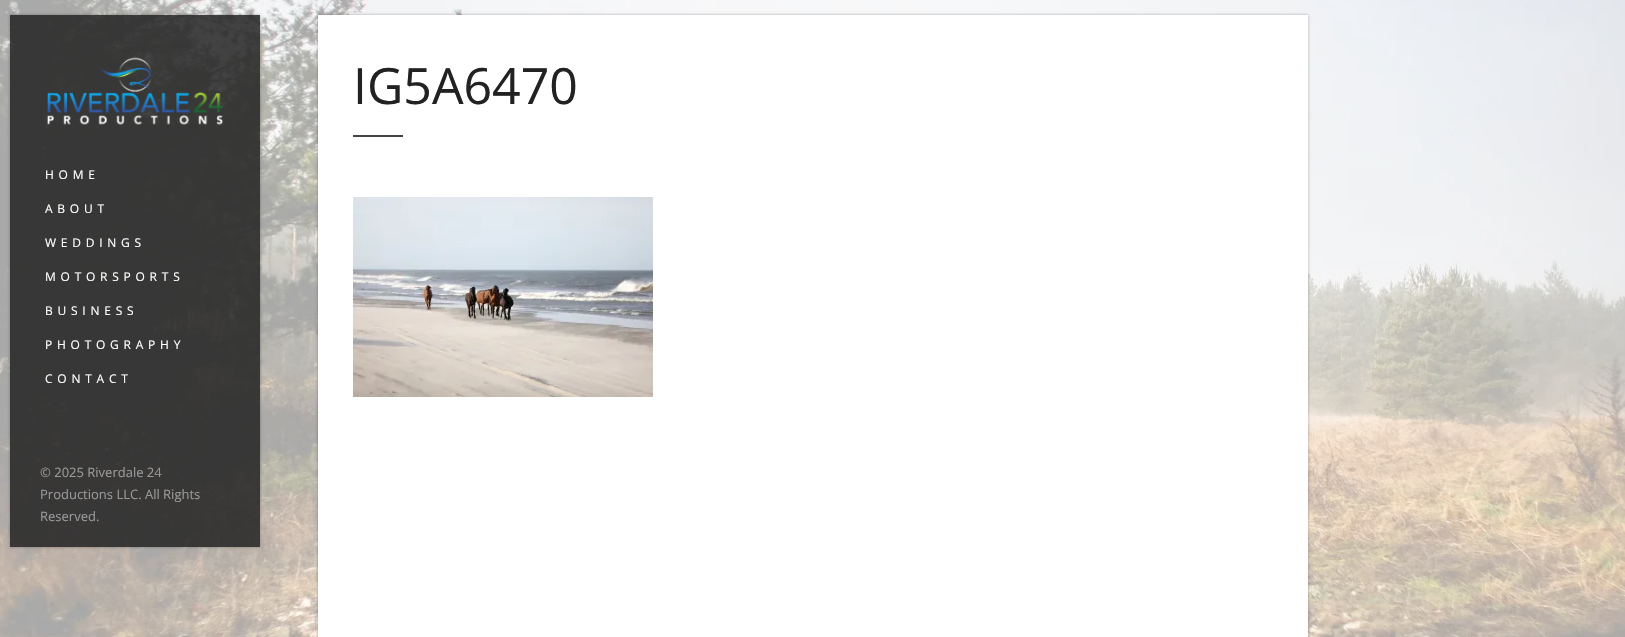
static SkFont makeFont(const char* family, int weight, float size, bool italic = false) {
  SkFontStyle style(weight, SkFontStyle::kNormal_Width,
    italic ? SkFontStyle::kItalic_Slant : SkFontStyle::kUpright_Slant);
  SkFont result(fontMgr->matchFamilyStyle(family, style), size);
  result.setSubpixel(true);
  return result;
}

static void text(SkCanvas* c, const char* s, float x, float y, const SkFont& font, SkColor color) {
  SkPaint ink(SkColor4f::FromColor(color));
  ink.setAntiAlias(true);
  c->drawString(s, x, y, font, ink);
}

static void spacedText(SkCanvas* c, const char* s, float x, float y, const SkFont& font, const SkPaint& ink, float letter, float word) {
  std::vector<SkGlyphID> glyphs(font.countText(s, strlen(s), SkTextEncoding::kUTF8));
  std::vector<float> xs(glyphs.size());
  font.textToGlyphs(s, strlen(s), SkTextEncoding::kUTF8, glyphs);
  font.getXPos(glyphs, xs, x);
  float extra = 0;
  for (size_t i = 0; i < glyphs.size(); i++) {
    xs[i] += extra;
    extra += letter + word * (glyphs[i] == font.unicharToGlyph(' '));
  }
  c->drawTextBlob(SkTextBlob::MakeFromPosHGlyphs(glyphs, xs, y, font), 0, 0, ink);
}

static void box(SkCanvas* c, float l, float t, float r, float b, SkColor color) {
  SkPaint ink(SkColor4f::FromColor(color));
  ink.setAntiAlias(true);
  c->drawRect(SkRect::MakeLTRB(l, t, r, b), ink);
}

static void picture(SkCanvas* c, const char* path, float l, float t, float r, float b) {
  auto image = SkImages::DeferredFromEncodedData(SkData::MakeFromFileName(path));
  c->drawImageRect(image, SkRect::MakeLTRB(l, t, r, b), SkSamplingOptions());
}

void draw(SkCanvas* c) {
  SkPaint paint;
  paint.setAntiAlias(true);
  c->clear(0xffffffff);
  picture(c, "img_01.png", 0, 0, 1625, 637);
  paint.setColor(0x4d000000);
  paint.setMaskFilter(SkMaskFilter::MakeBlur(kNormal_SkBlurStyle, 1.5f));
  c->drawRect(SkRect::MakeLTRB(318, 15, 1308, 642), paint);
  paint.setMaskFilter(nullptr);
  box(c, 318, 15, 1308, 637, 0xffffffff);
  SkFont face1 = makeFont("Open Sans", 400, 50);
  text(c, "IG5A6470", 353, 104, face1, 0xff222222);
  box(c, 353, 135, 403, 137, 0xff444444);
  picture(c, "img_02.png", 353, 197, 653, 397);
  c->save();
  c->clipPath(SkPathBuilder(SkPathFillType::kEvenOdd).moveTo(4, 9).lineTo(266, 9).lineTo(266, 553).lineTo(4, 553).close().moveTo(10, 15).lineTo(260, 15).lineTo(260, 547).lineTo(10, 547).close().detach(), true);
  paint.setMaskFilter(SkMaskFilter::MakeBlur(kNormal_SkBlurStyle, 1.5f));
  c->drawRect(SkRect::MakeLTRB(10, 15, 260, 547), paint);
  paint.setMaskFilter(nullptr);
  c->restore();
  box(c, 10, 15, 260, 547, 0xd9222222);
  picture(c, "img_03.png", 47, 57, 223, 125);
  SkFont face2 = makeFont("Open Sans", 400, 12);
  paint.setColor(0xffffffff);
  spacedText(c, "HOME", 45, 179, face2, paint, 4.75f, 0);
  spacedText(c, "ABOUT", 45, 213, face2, paint, 4.75f, 0);
  spacedText(c, "WEDDINGS", 45, 247, face2, paint, 4.75f, 0);
  spacedText(c, "MOTORSPORTS", 45, 281, face2, paint, 4.75f, 0);
  spacedText(c, "BUSINESS", 45, 315, face2, paint, 4.75f, 0);
  spacedText(c, "PHOTOGRAPHY", 45, 349, face2, paint, 4.75f, 0);
  spacedText(c, "CONTACT", 45, 383, face2, paint, 4.75f, 0);
  SkFont face3 = makeFont("Open Sans", 400, 13);
  text(c, "© 2025 Riverdale 24", 40, 477, face3, 0xff999999);
  text(c, "Productions LLC. All Rights", 40, 499, face3, 0xff999999);
  text(c, "Reserved.", 40, 521, face3, 0xff999999);
}
